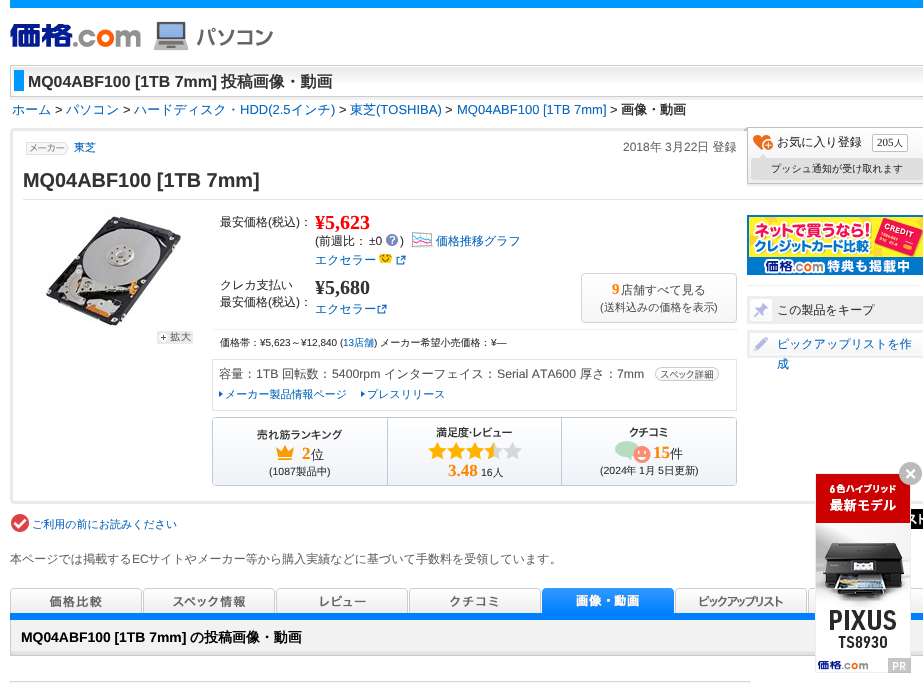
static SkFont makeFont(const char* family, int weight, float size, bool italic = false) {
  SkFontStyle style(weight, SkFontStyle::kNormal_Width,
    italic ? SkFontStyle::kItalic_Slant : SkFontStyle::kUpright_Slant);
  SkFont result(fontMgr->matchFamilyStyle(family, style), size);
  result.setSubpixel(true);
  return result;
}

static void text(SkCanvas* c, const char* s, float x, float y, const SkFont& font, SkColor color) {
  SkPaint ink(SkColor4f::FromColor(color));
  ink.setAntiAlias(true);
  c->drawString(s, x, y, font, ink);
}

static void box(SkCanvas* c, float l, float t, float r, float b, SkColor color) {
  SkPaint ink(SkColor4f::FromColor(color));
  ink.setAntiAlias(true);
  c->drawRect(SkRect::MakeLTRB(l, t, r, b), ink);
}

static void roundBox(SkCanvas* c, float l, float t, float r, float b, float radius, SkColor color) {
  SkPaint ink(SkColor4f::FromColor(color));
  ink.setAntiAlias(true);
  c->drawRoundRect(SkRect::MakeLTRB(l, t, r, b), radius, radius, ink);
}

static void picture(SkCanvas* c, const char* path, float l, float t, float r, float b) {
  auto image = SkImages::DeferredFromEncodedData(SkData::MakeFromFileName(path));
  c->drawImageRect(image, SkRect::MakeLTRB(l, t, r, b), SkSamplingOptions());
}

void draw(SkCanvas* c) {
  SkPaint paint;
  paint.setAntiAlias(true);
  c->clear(0xffffffff);
  box(c, 10, 0, 923, 8, 0xff0099ff);
  picture(c, "img_01.png", 10, 24, 141, 47);
  picture(c, "img_02.png", 154, 21, 273, 51);
  box(c, 10, 97, 923, 100, 0xfff1f1f1);
  paint.setStyle(SkPaint::kStroke_Style);
  paint.setStrokeWidth(1);
  paint.setColor(0xffcccccc);
  c->drawRect(SkRect::MakeLTRB(10.5f, 65.5f, 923.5f, 96.5f), paint);
  picture(c, "img_03.png", 12, 67, 923, 83);
  box(c, 14, 70, 24, 91, 0xff0099ff);
  SkFont face1 = makeFont("Liberation Sans", 700, 15.9f);
  text(c, "MQ04ABF100 [1TB 7mm]", 28, 87, face1, 0xff333333);
  SkFont face2 = makeFont("WenQuanYi Zen Hei", 700, 15.9f);
  text(c, "投稿画像・動画", 221, 87, face2, 0xff333333);
  SkFont face3 = makeFont("WenQuanYi Zen Hei", 500, 13);
  text(c, "ホーム", 12, 114, face3, 0xff0867bf);
  SkFont face4 = makeFont("Liberation Sans", 400, 13);
  text(c, ">", 55, 114, face4, 0xff333333);
  text(c, "パソコン", 66, 114, face3, 0xff0867bf);
  text(c, ">", 123, 114, face4, 0xff333333);
  text(c, "ハードディスク・", 134, 114, face3, 0xff0867bf);
  text(c, "HDD(2.5", 240, 114, face4, 0xff0867bf);
  text(c, "インチ", 291, 114, face3, 0xff0867bf);
  text(c, ")", 331, 114, face4, 0xff0867bf);
  text(c, ">", 339, 114, face4, 0xff333333);
  text(c, "東芝", 350, 114, face3, 0xff0867bf);
  text(c, "(TOSHIBA)", 376, 114, face4, 0xff0867bf);
  text(c, ">", 445, 114, face4, 0xff333333);
  text(c, "MQ04ABF100 [1TB 7mm]", 457, 114, face4, 0xff0867bf);
  text(c, ">", 610, 114, face4, 0xff333333);
  SkFont face5 = makeFont("WenQuanYi Zen Hei", 700, 13);
  text(c, "画像・動画", 621, 114, face5, 0xff333333);
  paint.setStrokeWidth(3);
  paint.setColor(0xffebeaea);
  c->drawRoundRect(SkRect::MakeLTRB(11.5f, 129.5f, 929.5f, 502.5f), 3.5f, 3.5f, paint);
  picture(c, "img_04.png", 26, 142, 69, 155);
  SkFont face6 = makeFont("WenQuanYi Zen Hei", 500, 11);
  text(c, "東芝", 74, 151, face6, 0xff0867bf);
  SkFont face7 = makeFont("Liberation Sans", 400, 12);
  text(c, "2018", 623, 151, face7, 0xff666666);
  SkFont face8 = makeFont("WenQuanYi Zen Hei", 500, 12);
  text(c, "年", 650, 151, face8, 0xff666666);
  text(c, "3", 665, 151, face7, 0xff666666);
  text(c, "月", 672, 151, face8, 0xff666666);
  text(c, "22", 684, 151, face7, 0xff666666);
  text(c, "日 登録", 697, 151, face8, 0xff666666);
  paint.setStyle(SkPaint::kFill_Style);
  paint.setMaskFilter(SkMaskFilter::MakeBlur(kNormal_SkBlurStyle, 0.5f));
  c->drawRoundRect(SkRect::MakeLTRB(747, 129, 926, 186), 1, 1, paint);
  paint.setMaskFilter(nullptr);
  paint.setColor(0xffc0c0c0);
  c->drawPath(SkPathBuilder().moveTo(747, 127).lineTo(747, 131).lineTo(745, 129).close().detach(), paint);
  c->drawPath(SkPathBuilder().moveTo(747, 131).lineTo(743, 131).lineTo(745, 129).close().detach(), paint);
  {
    const SkColor colors[] = {0xffffffff, 0xffededed};
    const float stops[] = {0, 1};
    const SkPoint ends[] = {{837, 128}, {837, 183}};
    paint.setShader(SkGradientShader::MakeLinear(ends, colors, stops, 2, SkTileMode::kClamp));
    paint.setAlpha(255);
  }
  c->drawRect(SkRect::MakeLTRB(748, 128, 923, 183), paint);
  paint.setStyle(SkPaint::kStroke_Style);
  paint.setStrokeWidth(1);
  paint.setShader(nullptr);
  paint.setColor(0xffc0c0c0);
  c->drawRoundRect(SkRect::MakeLTRB(747.5f, 127.5f, 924.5f, 183.5f), 0.5f, 0.5f, paint);
  picture(c, "img_05.png", 753, 135, 773, 150);
  text(c, "お気に入り登録", 777, 146, face8, 0xff333333);
  paint.setStyle(SkPaint::kFill_Style);
  paint.setColor(0xffffffff);
  c->drawRoundRect(SkRect::MakeLTRB(872.5f, 134.5f, 907.5f, 151.5f), 1.5f, 1.5f, paint);
  paint.setStyle(SkPaint::kStroke_Style);
  paint.setColor(0xffc0c0c0);
  c->drawRoundRect(SkRect::MakeLTRB(872.5f, 134.5f, 907.5f, 151.5f), 1.5f, 1.5f, paint);
  SkFont face9 = makeFont("Liberation Serif", 400, 11);
  text(c, "205", 877, 146, face9, 0xff333333);
  SkFont face10 = makeFont("WenQuanYi Zen Hei", 500, 9);
  text(c, "人", 894, 146, face10, 0xff333333);
  roundBox(c, 751, 158, 923, 180, 3, 0xffdfdfdf);
  paint.setStyle(SkPaint::kFill_Style);
  paint.setColor(0xffdfdfdf);
  c->drawPath(SkPathBuilder().moveTo(767, 158).lineTo(759, 158).lineTo(763, 154).close().detach(), paint);
  SkFont face11 = makeFont("WenQuanYi Zen Hei", 500, 10);
  text(c, "プッシュ通知が受け取れます", 771, 172, face11, 0xff333333);
  box(c, 23, 199, 923, 200, 0xffe6e3e3);
  SkFont face12 = makeFont("Liberation Sans", 700, 19.9f);
  text(c, "MQ04ABF100 [1TB 7mm]", 23, 187, face12, 0xff333333);
  picture(c, "img_06.png", 41, 210, 185, 330);
  picture(c, "img_07.png", 157, 331, 193, 344);
  text(c, "最安価格", 220, 226, face8, 0xff333333);
  text(c, "(", 268, 226, face7, 0xff333333);
  text(c, "税込", 272, 226, face8, 0xff333333);
  text(c, ")", 296, 226, face7, 0xff333333);
  text(c, "：", 300, 226, face8, 0xff333333);
  SkFont face13 = makeFont("Liberation Serif", 700, 20);
  text(c, "¥5,623", 315, 229, face13, 0xffff0000);
  text(c, "(", 315, 245, face7, 0xff333333);
  text(c, "前週比：", 319, 245, face8, 0xff333333);
  text(c, "±0", 369, 245, face7, 0xff333333);
  picture(c, "img_08.png", 386, 234, 398, 246);
  text(c, ")", 400, 245, face7, 0xff333333);
  picture(c, "img_09.png", 410, 232, 434, 248);
  text(c, "価格推移グラフ", 436, 245, face8, 0xff0867bf);
  text(c, "エクセラー", 315, 264, face8, 0xff0867bf);
  picture(c, "img_10.png", 379, 254, 392, 263);
  picture(c, "img_11.png", 396, 255, 406, 265);
  paint.setStyle(SkPaint::kStroke_Style);
  paint.setColor(0xffe6e3e3);
  paint.setPathEffect(SkDashPathEffect::Make({{1, 1}}, 0));
  c->drawPath(SkPathBuilder().moveTo(212, 329.5f).lineTo(737, 329.5f).detach(), paint);
  paint.setPathEffect(nullptr);
  text(c, "クレカ支払い", 220, 289, face8, 0xff333333);
  text(c, "最安価格", 220, 306, face8, 0xff333333);
  text(c, "(", 268, 306, face7, 0xff333333);
  text(c, "税込", 272, 306, face8, 0xff333333);
  text(c, ")", 296, 306, face7, 0xff333333);
  text(c, "：", 300, 306, face8, 0xff333333);
  text(c, "¥5,680", 315, 294, face13, 0xff333333);
  text(c, "エクセラー", 315, 313, face8, 0xff0867bf);
  picture(c, "img_11.png", 377, 304, 387, 314);
  c->save();
  c->clipPath(SkPathBuilder().moveTo(585, 273).lineTo(733, 273).cubicTo(735, 273, 737, 275, 737, 277).lineTo(737, 319).cubicTo(737, 321, 735, 323, 733, 323).lineTo(585, 323).cubicTo(583, 323, 581, 321, 581, 319).lineTo(581, 277).cubicTo(581, 275, 583, 273, 585, 273).close().detach(), true);
  paint.setStyle(SkPaint::kFill_Style);
  {
    const SkColor colors[] = {0xffffffff, 0xfff6f6f6};
    const float stops[] = {0, 1};
    const SkPoint ends[] = {{659, 274}, {659, 322}};
    paint.setShader(SkGradientShader::MakeLinear(ends, colors, stops, 2, SkTileMode::kClamp));
    paint.setAlpha(255);
  }
  c->drawRect(SkRect::MakeLTRB(581, 274, 737, 322), paint);
  c->restore();
  paint.setStyle(SkPaint::kStroke_Style);
  paint.setShader(nullptr);
  paint.setColor(0xffd4d4d4);
  c->drawRoundRect(SkRect::MakeLTRB(581.5f, 273.5f, 736.5f, 322.5f), 3.5f, 3.5f, paint);
  SkFont face14 = makeFont("Liberation Serif", 700, 15);
  text(c, "9", 612, 294, face14, 0xffff8400);
  text(c, "店舗すべて見る", 621, 294, face8, 0xff555555);
  SkFont face15 = makeFont("Liberation Sans", 400, 11);
  text(c, "(", 600, 311, face15, 0xff555555);
  text(c, "送料込みの価格を表示", 604, 311, face6, 0xff555555);
  text(c, ")", 714, 311, face15, 0xff555555);
  text(c, "価格帯：", 220, 346, face11, 0xff333333);
  SkFont face16 = makeFont("Liberation Sans", 400, 10);
  text(c, "¥5,623", 260, 346, face16, 0xff333333);
  text(c, "～", 291, 346, face11, 0xff333333);
  text(c, "¥12,840 (", 301, 346, face16, 0xff333333);
  text(c, "13", 343, 346, face16, 0xff0867bf);
  text(c, "店舗", 354, 346, face11, 0xff0867bf);
  text(c, ")", 374, 346, face16, 0xff333333);
  text(c, "メーカー希望小売価格：", 380, 346, face11, 0xff333333);
  text(c, "¥―", 491, 346, face16, 0xff333333);
  paint.setColor(0xffe6e3e3);
  c->drawRect(SkRect::MakeLTRB(212.5f, 359.5f, 736.5f, 410.5f), paint);
  SkFont face17 = makeFont("WenQuanYi Zen Hei", 500, 12.25f);
  text(c, "容量：", 219, 378, face17, 0xff555555);
  SkFont face18 = makeFont("Liberation Sans", 400, 12.25f);
  text(c, "1TB", 256, 378, face18, 0xff555555);
  text(c, "回転数：", 282, 378, face17, 0xff555555);
  text(c, "5400rpm", 332, 378, face18, 0xff555555);
  text(c, "インターフェイス：", 384, 378, face17, 0xff555555);
  text(c, "Serial ATA600", 497, 378, face18, 0xff555555);
  text(c, "厚さ：", 580, 378, face17, 0xff555555);
  text(c, "7mm", 617, 378, face18, 0xff555555);
  picture(c, "img_12.png", 655, 367, 719, 381);
  paint.setStyle(SkPaint::kFill_Style);
  paint.setColor(0xff0867bf);
  c->drawPath(SkPathBuilder().moveTo(219, 397).lineTo(219, 391).lineTo(223, 394).close().detach(), paint);
  text(c, "メーカー製品情報ページ", 225, 398, face6, 0xff0867bf);
  c->drawPath(SkPathBuilder().moveTo(361, 397).lineTo(361, 391).lineTo(365, 394).close().detach(), paint);
  text(c, "プレスリリース", 367, 398, face6, 0xff0867bf);
  paint.setStyle(SkPaint::kStroke_Style);
  paint.setColor(0xffc0cbda);
  c->drawRoundRect(SkRect::MakeLTRB(212.5f, 417.5f, 736.5f, 485.5f), 3.5f, 3.5f, paint);
  paint.setStyle(SkPaint::kFill_Style);
  {
    const SkColor colors[] = {0xffffffff, 0xffeff2f7};
    const float stops[] = {0, 1};
    const SkPoint ends[] = {{300, 418}, {300, 485}};
    paint.setShader(SkGradientShader::MakeLinear(ends, colors, stops, 2, SkTileMode::kClamp));
    paint.setAlpha(255);
  }
  c->drawPath(SkPathBuilder().moveTo(215, 418).lineTo(388, 418).lineTo(388, 485).lineTo(215, 485).cubicTo(214, 485, 213, 484, 213, 483).lineTo(213, 420).cubicTo(213, 419, 214, 418, 215, 418).close().detach(), paint);
  box(c, 387, 418, 388, 485, 0xffc0cbda);
  picture(c, "img_13.png", 257, 429, 342, 440);
  picture(c, "img_14.png", 276, 445, 294, 460);
  SkFont face19 = makeFont("Liberation Serif", 700, 17);
  text(c, "2", 302, 459, face19, 0xffff8400);
  text(c, "位", 311, 459, face3, 0xff333333);
  SkFont face20 = makeFont("Liberation Sans", 400, 10.5f);
  text(c, "(1087", 269, 475, face20, 0xff333333);
  SkFont face21 = makeFont("WenQuanYi Zen Hei", 500, 10.5f);
  text(c, "製品中", 296, 475, face21, 0xff333333);
  text(c, ")", 327, 475, face20, 0xff333333);
  {
    const SkColor colors[] = {0xffffffff, 0xffeff2f7};
    const float stops[] = {0, 1};
    const SkPoint ends[] = {{475, 418}, {475, 485}};
    paint.setShader(SkGradientShader::MakeLinear(ends, colors, stops, 2, SkTileMode::kClamp));
    paint.setAlpha(255);
  }
  c->drawRect(SkRect::MakeLTRB(388, 428, 561, 485), paint);
  box(c, 561, 418, 562, 485, 0xffc0cbda);
  picture(c, "img_15.png", 436, 427, 512, 438);
  picture(c, "img_16.png", 428, 442, 522, 460);
  text(c, "3.48", 448, 476, face19, 0xffff8400);
  text(c, "16", 481, 476, face20, 0xff333333);
  text(c, "人", 493, 476, face21, 0xff333333);
  {
    const SkColor colors[] = {0xffffffff, 0xffeff2f7};
    const float stops[] = {0, 1};
    const SkPoint ends[] = {{649, 418}, {649, 485}};
    paint.setShader(SkGradientShader::MakeLinear(ends, colors, stops, 2, SkTileMode::kClamp));
    paint.setAlpha(255);
  }
  c->drawPath(SkPathBuilder().moveTo(562, 418).lineTo(734, 418).cubicTo(735, 418, 736, 419, 736, 420).lineTo(736, 483).cubicTo(736, 484, 735, 485, 734, 485).lineTo(562, 485).close().detach(), paint);
  picture(c, "img_17.png", 629, 427, 668, 438);
  picture(c, "img_18.png", 615, 441, 651, 463);
  text(c, "15", 653, 458, face19, 0xffff8400);
  text(c, "件", 670, 458, face3, 0xff333333);
  text(c, "(2024", 600, 474, face20, 0xff333333);
  text(c, "年", 626, 474, face21, 0xff333333);
  text(c, "1", 639, 474, face20, 0xff333333);
  text(c, "月", 645, 474, face21, 0xff333333);
  text(c, "5", 658, 474, face20, 0xff333333);
  text(c, "日更新", 664, 474, face21, 0xff333333);
  text(c, ")", 695, 474, face20, 0xff333333);
  picture(c, "img_19.png", 747, 215, 923, 275);
  paint.setStyle(SkPaint::kStroke_Style);
  paint.setShader(nullptr);
  paint.setColor(0xffe6e3e3);
  paint.setPathEffect(SkDashPathEffect::Make({{1, 1}}, 0));
  c->drawPath(SkPathBuilder().moveTo(747, 285.5f).lineTo(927, 285.5f).detach(), paint);
  paint.setPathEffect(nullptr);
  box(c, 747, 296, 923, 324, 0xffeeeeee);
  picture(c, "img_20.png", 750, 299, 772, 321);
  text(c, "この製品をキープ", 777, 314, face8, 0xff333333);
  box(c, 747, 330, 923, 358, 0xffeeeeee);
  paint.setStyle(SkPaint::kFill_Style);
  {
    const SkColor colors[] = {0xffffffff, 0xfff6f6f6};
    const float stops[] = {0, 1};
    const SkPoint ends[] = {{837, 334}, {837, 354}};
    paint.setShader(SkGradientShader::MakeLinear(ends, colors, stops, 2, SkTileMode::kClamp));
    paint.setAlpha(255);
  }
  c->drawRect(SkRect::MakeLTRB(751, 334, 923, 354), paint);
  paint.setStyle(SkPaint::kStroke_Style);
  paint.setShader(nullptr);
  paint.setColor(0xffffffff);
  c->drawRoundRect(SkRect::MakeLTRB(750.5f, 333.5f, 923.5f, 354.5f), 0.5f, 0.5f, paint);
  picture(c, "img_21.png", 754, 337, 768, 351);
  text(c, "ピックアップリストを作", 777, 348, face8, 0xff0867bf);
  text(c, "成", 777, 368, face8, 0xff0867bf);
  picture(c, "img_22.png", 11, 514, 29, 532);
  text(c, "ご利用の前にお読みください", 32, 528, face6, 0xff0867bf);
  picture(c, "img_23.png", 911, 509, 923, 529);
  text(c, "本ページでは掲載する", 10, 563, face8, 0xff666666);
  text(c, "EC", 132, 563, face7, 0xff666666);
  text(c, "サイトやメーカー等から購入実績などに基づいて手数料を受領しています。", 148, 563, face8, 0xff666666);
  c->save();
  c->clipPath(SkPathBuilder().moveTo(14, 588).lineTo(138, 588).cubicTo(140, 588, 142, 590, 142, 592).lineTo(142, 613).lineTo(10, 613).lineTo(10, 592).cubicTo(10, 590, 12, 588, 14, 588).close().detach(), true);
  c->clipPath(SkPathBuilder().moveTo(14, 588).lineTo(138, 588).cubicTo(140, 588, 142, 590, 142, 592).lineTo(142, 613).lineTo(10, 613).lineTo(10, 592).cubicTo(10, 590, 12, 588, 14, 588).close().detach(), true);
  paint.setStyle(SkPaint::kFill_Style);
  {
    const SkColor colors[] = {0xffffffff, 0xffededed};
    const float stops[] = {0, 1};
    const SkPoint ends[] = {{76, 589}, {76, 613}};
    paint.setShader(SkGradientShader::MakeLinear(ends, colors, stops, 2, SkTileMode::kClamp));
    paint.setAlpha(255);
  }
  c->drawRect(SkRect::MakeLTRB(10, 589, 142, 613), paint);
  c->restore();
  paint.setShader(nullptr);
  paint.setColor(0xffcccccc);
  c->drawPath(SkPathBuilder(SkPathFillType::kEvenOdd).moveTo(14, 588).lineTo(138, 588).cubicTo(140, 588, 142, 590, 142, 592).lineTo(142, 613).lineTo(10, 613).lineTo(10, 592).cubicTo(10, 590, 12, 588, 14, 588).close().moveTo(14, 589).lineTo(138, 589).cubicTo(140, 589, 141, 590, 141, 592).lineTo(141, 613).lineTo(11, 613).lineTo(11, 592).cubicTo(11, 590, 12, 589, 14, 589).close().detach(), paint);
  picture(c, "img_24.png", 49, 595, 102, 608);
  c->save();
  c->clipPath(SkPathBuilder().moveTo(147, 588).lineTo(271, 588).cubicTo(273, 588, 275, 590, 275, 592).lineTo(275, 613).lineTo(143, 613).lineTo(143, 592).cubicTo(143, 590, 145, 588, 147, 588).close().detach(), true);
  c->clipPath(SkPathBuilder().moveTo(147, 588).lineTo(271, 588).cubicTo(273, 588, 275, 590, 275, 592).lineTo(275, 613).lineTo(143, 613).lineTo(143, 592).cubicTo(143, 590, 145, 588, 147, 588).close().detach(), true);
  {
    const SkColor colors[] = {0xffffffff, 0xffededed};
    const float stops[] = {0, 1};
    const SkPoint ends[] = {{209, 589}, {209, 613}};
    paint.setShader(SkGradientShader::MakeLinear(ends, colors, stops, 2, SkTileMode::kClamp));
    paint.setAlpha(255);
  }
  c->drawRect(SkRect::MakeLTRB(143, 589, 275, 613), paint);
  c->restore();
  paint.setShader(nullptr);
  paint.setColor(0xffcccccc);
  c->drawPath(SkPathBuilder(SkPathFillType::kEvenOdd).moveTo(147, 588).lineTo(271, 588).cubicTo(273, 588, 275, 590, 275, 592).lineTo(275, 613).lineTo(143, 613).lineTo(143, 592).cubicTo(143, 590, 145, 588, 147, 588).close().moveTo(147, 589).lineTo(271, 589).cubicTo(273, 589, 274, 590, 274, 592).lineTo(274, 613).lineTo(144, 613).lineTo(144, 592).cubicTo(144, 590, 145, 589, 147, 589).close().detach(), paint);
  picture(c, "img_25.png", 173, 595, 245, 608);
  c->save();
  c->clipPath(SkPathBuilder().moveTo(280, 588).lineTo(404, 588).cubicTo(406, 588, 408, 590, 408, 592).lineTo(408, 613).lineTo(276, 613).lineTo(276, 592).cubicTo(276, 590, 278, 588, 280, 588).close().detach(), true);
  c->clipPath(SkPathBuilder().moveTo(280, 588).lineTo(404, 588).cubicTo(406, 588, 408, 590, 408, 592).lineTo(408, 613).lineTo(276, 613).lineTo(276, 592).cubicTo(276, 590, 278, 588, 280, 588).close().detach(), true);
  {
    const SkColor colors[] = {0xffffffff, 0xffededed};
    const float stops[] = {0, 1};
    const SkPoint ends[] = {{342, 589}, {342, 613}};
    paint.setShader(SkGradientShader::MakeLinear(ends, colors, stops, 2, SkTileMode::kClamp));
    paint.setAlpha(255);
  }
  c->drawRect(SkRect::MakeLTRB(276, 589, 408, 613), paint);
  c->restore();
  paint.setShader(nullptr);
  paint.setColor(0xffcccccc);
  c->drawPath(SkPathBuilder(SkPathFillType::kEvenOdd).moveTo(280, 588).lineTo(404, 588).cubicTo(406, 588, 408, 590, 408, 592).lineTo(408, 613).lineTo(276, 613).lineTo(276, 592).cubicTo(276, 590, 278, 588, 280, 588).close().moveTo(280, 589).lineTo(404, 589).cubicTo(406, 589, 407, 590, 407, 592).lineTo(407, 613).lineTo(277, 613).lineTo(277, 592).cubicTo(277, 590, 278, 589, 280, 589).close().detach(), paint);
  picture(c, "img_26.png", 320, 595, 366, 607);
  c->save();
  c->clipPath(SkPathBuilder().moveTo(413, 588).lineTo(537, 588).cubicTo(539, 588, 541, 590, 541, 592).lineTo(541, 613).lineTo(409, 613).lineTo(409, 592).cubicTo(409, 590, 411, 588, 413, 588).close().detach(), true);
  c->clipPath(SkPathBuilder().moveTo(413, 588).lineTo(537, 588).cubicTo(539, 588, 541, 590, 541, 592).lineTo(541, 613).lineTo(409, 613).lineTo(409, 592).cubicTo(409, 590, 411, 588, 413, 588).close().detach(), true);
  {
    const SkColor colors[] = {0xffffffff, 0xffededed};
    const float stops[] = {0, 1};
    const SkPoint ends[] = {{475, 589}, {475, 613}};
    paint.setShader(SkGradientShader::MakeLinear(ends, colors, stops, 2, SkTileMode::kClamp));
    paint.setAlpha(255);
  }
  c->drawRect(SkRect::MakeLTRB(409, 589, 541, 613), paint);
  c->restore();
  paint.setShader(nullptr);
  paint.setColor(0xffcccccc);
  c->drawPath(SkPathBuilder(SkPathFillType::kEvenOdd).moveTo(413, 588).lineTo(537, 588).cubicTo(539, 588, 541, 590, 541, 592).lineTo(541, 613).lineTo(409, 613).lineTo(409, 592).cubicTo(409, 590, 411, 588, 413, 588).close().moveTo(413, 589).lineTo(537, 589).cubicTo(539, 589, 540, 590, 540, 592).lineTo(540, 613).lineTo(410, 613).lineTo(410, 592).cubicTo(410, 590, 411, 589, 413, 589).close().detach(), paint);
  picture(c, "img_27.png", 450, 596, 498, 607);
  {
    const SkColor colors[] = {0xff3399ff, 0xff0080ff};
    const float stops[] = {0, 1};
    const SkPoint ends[] = {{608, 588}, {608, 613}};
    paint.setShader(SkGradientShader::MakeLinear(ends, colors, stops, 2, SkTileMode::kClamp));
    paint.setAlpha(255);
  }
  c->drawPath(SkPathBuilder().moveTo(546, 588).lineTo(670, 588).cubicTo(672, 588, 674, 590, 674, 592).lineTo(674, 613).lineTo(542, 613).lineTo(542, 592).cubicTo(542, 590, 544, 588, 546, 588).close().detach(), paint);
  picture(c, "img_28.png", 576, 594, 639, 607);
  c->save();
  c->clipPath(SkPathBuilder().moveTo(679, 588).lineTo(803, 588).cubicTo(805, 588, 807, 590, 807, 592).lineTo(807, 613).lineTo(675, 613).lineTo(675, 592).cubicTo(675, 590, 677, 588, 679, 588).close().detach(), true);
  c->clipPath(SkPathBuilder().moveTo(679, 588).lineTo(803, 588).cubicTo(805, 588, 807, 590, 807, 592).lineTo(807, 613).lineTo(675, 613).lineTo(675, 592).cubicTo(675, 590, 677, 588, 679, 588).close().detach(), true);
  {
    const SkColor colors[] = {0xffffffff, 0xffededed};
    const float stops[] = {0, 1};
    const SkPoint ends[] = {{741, 589}, {741, 613}};
    paint.setShader(SkGradientShader::MakeLinear(ends, colors, stops, 2, SkTileMode::kClamp));
    paint.setAlpha(255);
  }
  c->drawRect(SkRect::MakeLTRB(675, 589, 807, 613), paint);
  c->restore();
  paint.setShader(nullptr);
  paint.setColor(0xffcccccc);
  c->drawPath(SkPathBuilder(SkPathFillType::kEvenOdd).moveTo(679, 588).lineTo(803, 588).cubicTo(805, 588, 807, 590, 807, 592).lineTo(807, 613).lineTo(675, 613).lineTo(675, 592).cubicTo(675, 590, 677, 588, 679, 588).close().moveTo(679, 589).lineTo(803, 589).cubicTo(805, 589, 806, 590, 806, 592).lineTo(806, 613).lineTo(676, 613).lineTo(676, 592).cubicTo(676, 590, 677, 589, 679, 589).close().detach(), paint);
  picture(c, "img_29.png", 699, 595, 783, 607);
  c->save();
  c->clipPath(SkPathBuilder().moveTo(812, 588).lineTo(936, 588).cubicTo(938, 588, 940, 590, 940, 592).lineTo(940, 613).lineTo(808, 613).lineTo(808, 592).cubicTo(808, 590, 810, 588, 812, 588).close().detach(), true);
  c->clipPath(SkPathBuilder().moveTo(812, 588).lineTo(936, 588).cubicTo(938, 588, 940, 590, 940, 592).lineTo(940, 613).lineTo(808, 613).lineTo(808, 592).cubicTo(808, 590, 810, 588, 812, 588).close().detach(), true);
  {
    const SkColor colors[] = {0xffffffff, 0xffededed};
    const float stops[] = {0, 1};
    const SkPoint ends[] = {{874, 589}, {874, 613}};
    paint.setShader(SkGradientShader::MakeLinear(ends, colors, stops, 2, SkTileMode::kClamp));
    paint.setAlpha(255);
  }
  c->drawRect(SkRect::MakeLTRB(808, 589, 923, 613), paint);
  c->restore();
  paint.setShader(nullptr);
  paint.setColor(0xffcccccc);
  c->drawPath(SkPathBuilder(SkPathFillType::kEvenOdd).moveTo(812, 588).lineTo(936, 588).cubicTo(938, 588, 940, 590, 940, 592).lineTo(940, 613).lineTo(808, 613).lineTo(808, 592).cubicTo(808, 590, 810, 588, 812, 588).close().moveTo(812, 589).lineTo(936, 589).cubicTo(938, 589, 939, 590, 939, 592).lineTo(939, 613).lineTo(809, 613).lineTo(809, 592).cubicTo(809, 590, 810, 589, 812, 589).close().detach(), paint);
  box(c, 10, 613, 923, 620, 0xff0080ff);
  box(c, 11, 620, 923, 651, 0xfff2f2f2);
  box(c, 10, 620, 11, 651, 0xffcccccc);
  SkFont face22 = makeFont("Liberation Sans", 700, 13.9f);
  text(c, "MQ04ABF100 [1TB 7mm]", 21, 642, face22, 0xff000000);
  SkFont face23 = makeFont("WenQuanYi Zen Hei", 700, 13.9f);
  text(c, "の投稿画像・動画", 190, 642, face23, 0xff000000);
  picture(c, "img_30.png", 10, 651, 923, 656);
  paint.setColor(0xfff9f9f9);
  c->drawRect(SkRect::MakeLTRB(10.5f, 681.5f, 749.5f, 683.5f), paint);
  paint.setStyle(SkPaint::kStroke_Style);
  paint.setColor(0xffd6d4d4);
  c->drawRect(SkRect::MakeLTRB(10.5f, 681.5f, 749.5f, 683.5f), paint);
  picture(c, "img_32.png", 815, 473, 911, 673);
  picture(c, "img_31.png", 899, 462, 922, 485);
}
